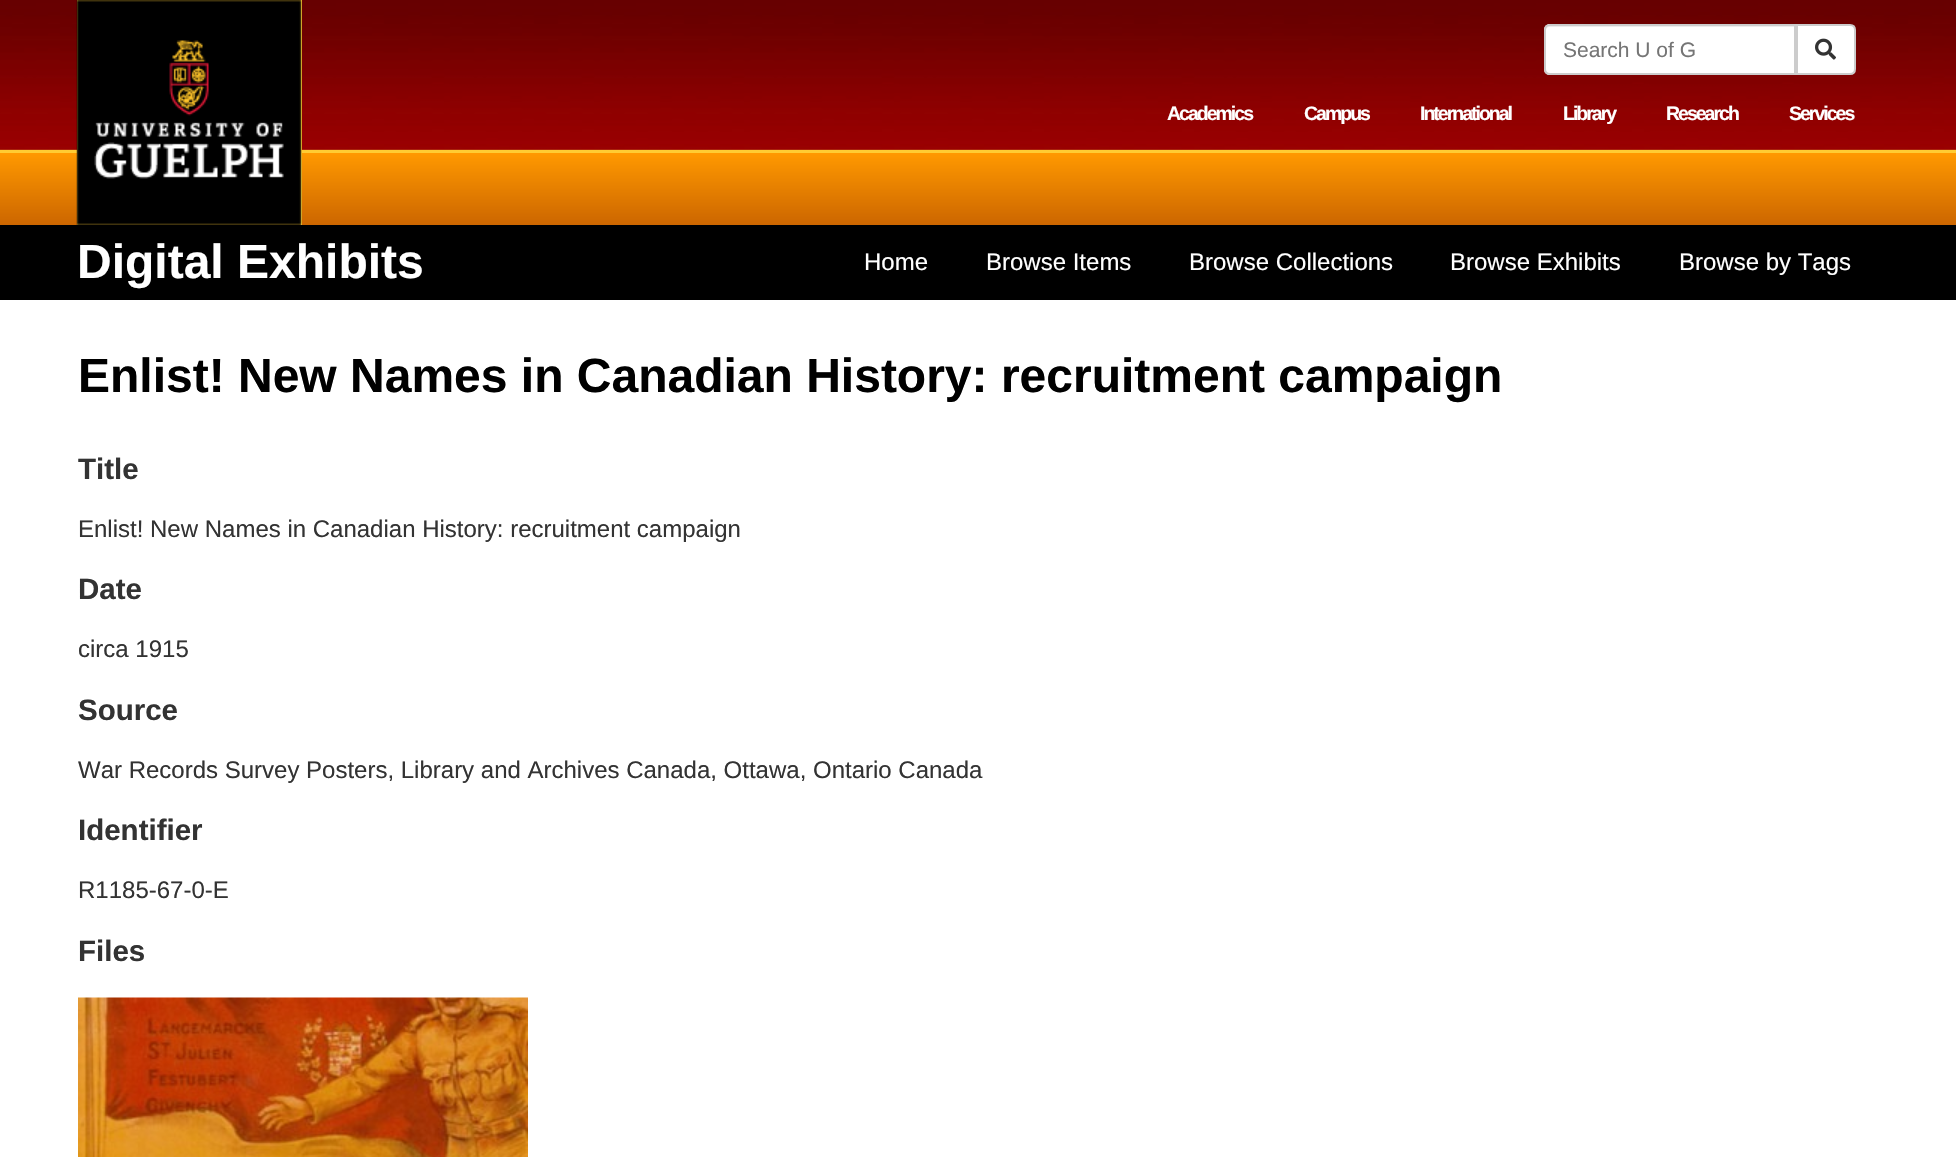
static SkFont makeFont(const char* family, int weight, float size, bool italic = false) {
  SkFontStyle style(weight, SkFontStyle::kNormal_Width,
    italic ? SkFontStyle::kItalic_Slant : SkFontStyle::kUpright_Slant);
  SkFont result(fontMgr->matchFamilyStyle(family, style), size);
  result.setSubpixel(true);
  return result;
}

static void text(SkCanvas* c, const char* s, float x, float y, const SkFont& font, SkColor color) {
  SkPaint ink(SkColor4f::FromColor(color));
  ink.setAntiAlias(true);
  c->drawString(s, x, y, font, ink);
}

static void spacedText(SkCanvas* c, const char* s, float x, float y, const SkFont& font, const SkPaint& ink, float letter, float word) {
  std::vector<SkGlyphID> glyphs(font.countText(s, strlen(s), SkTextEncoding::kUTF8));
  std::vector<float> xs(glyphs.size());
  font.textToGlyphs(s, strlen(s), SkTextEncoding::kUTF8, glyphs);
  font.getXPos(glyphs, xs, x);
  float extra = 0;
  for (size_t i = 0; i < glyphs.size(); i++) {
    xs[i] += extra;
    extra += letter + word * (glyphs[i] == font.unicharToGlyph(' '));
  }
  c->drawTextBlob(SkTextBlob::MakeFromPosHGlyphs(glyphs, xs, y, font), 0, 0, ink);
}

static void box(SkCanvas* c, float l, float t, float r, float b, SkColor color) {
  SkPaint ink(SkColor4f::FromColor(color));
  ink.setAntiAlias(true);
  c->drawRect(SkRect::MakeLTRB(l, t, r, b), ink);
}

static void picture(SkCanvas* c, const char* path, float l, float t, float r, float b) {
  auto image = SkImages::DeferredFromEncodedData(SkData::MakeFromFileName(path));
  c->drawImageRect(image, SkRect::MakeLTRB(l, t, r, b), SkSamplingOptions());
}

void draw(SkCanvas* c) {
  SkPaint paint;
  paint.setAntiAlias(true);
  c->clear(0xffffffff);
  picture(c, "img_01.png", 0, 0, 1956, 150);
  {
    const SkColor colors[] = {0xffff9900, 0xffcc6600};
    const float stops[] = {0, 1};
    const SkPoint ends[] = {{978, 153}, {978, 225}};
    paint.setShader(SkGradientShader::MakeLinear(ends, colors, stops, 2, SkTileMode::kClamp));
    paint.setAlpha(255);
  }
  c->drawRect(SkRect::MakeLTRB(0, 153, 1956, 225), paint);
  box(c, 0, 150, 1956, 153, 0xffffcc33);
  box(c, 77, 0, 302, 225, 0xffffcc33);
  picture(c, "img_02.png", 76, 0, 302, 225);
  paint.setShader(nullptr);
  paint.setColor(0xffffffff);
  c->drawPath(SkPathBuilder().moveTo(1550, 24).lineTo(1796, 24).lineTo(1796, 75).lineTo(1550, 75).cubicTo(1546.5f, 75, 1544, 72.5f, 1544, 69).lineTo(1544, 30).cubicTo(1544, 26.5f, 1546.5f, 24, 1550, 24).close().detach(), paint);
  paint.setColor(0xffececec);
  c->drawPath(SkPathBuilder().moveTo(1550, 27).lineTo(1794, 27).lineTo(1794, 26).lineTo(1550, 26).cubicTo(1547, 26, 1545, 28, 1545, 31).lineTo(1545, 32).cubicTo(1545, 29, 1547, 27, 1550, 27).close().detach(), paint);
  paint.setStyle(SkPaint::kStroke_Style);
  paint.setStrokeWidth(2);
  paint.setColor(0xffcccccc);
  c->drawPath(SkPathBuilder().moveTo(1550, 25).lineTo(1795, 25).lineTo(1795, 74).lineTo(1550, 74).cubicTo(1547, 74, 1545, 72, 1545, 69).lineTo(1545, 30).cubicTo(1545, 27, 1547, 25, 1550, 25).close().detach(), paint);
  SkFont face1 = makeFont("Liberation Sans", 400, 21);
  text(c, "Search U of G", 1563, 57, face1, 0xff757575);
  paint.setStyle(SkPaint::kFill_Style);
  paint.setColor(0xffffffff);
  c->drawPath(SkPathBuilder().moveTo(1797, 25).lineTo(1850, 25).cubicTo(1853, 25, 1855, 27, 1855, 30).lineTo(1855, 69).cubicTo(1855, 72, 1853, 74, 1850, 74).lineTo(1797, 74).close().detach(), paint);
  paint.setStyle(SkPaint::kStroke_Style);
  paint.setColor(0xffcccccc);
  c->drawPath(SkPathBuilder().moveTo(1797, 25).lineTo(1850, 25).cubicTo(1853, 25, 1855, 27, 1855, 30).lineTo(1855, 69).cubicTo(1855, 72, 1853, 74, 1850, 74).lineTo(1797, 74).close().detach(), paint);
  picture(c, "img_03.png", 1815, 38, 1836, 60);
  SkFont face2 = makeFont("Liberation Sans", 700, 19.5f);
  paint.setStyle(SkPaint::kFill_Style);
  paint.setColor(0xffffffff);
  spacedText(c, "Academics", 1167, 120, face2, paint, -2, 0);
  spacedText(c, "Campus", 1304, 120, face2, paint, -2, 0);
  spacedText(c, "International", 1420, 120, face2, paint, -2, 0);
  spacedText(c, "Library", 1563, 120, face2, paint, -2, 0);
  spacedText(c, "Research", 1666, 120, face2, paint, -2, 0);
  spacedText(c, "Services", 1789, 120, face2, paint, -2, 0);
  box(c, 0, 225, 1956, 300, 0xff000000);
  SkFont face3 = makeFont("Liberation Sans", 700, 48);
  text(c, "Digital Exhibits", 77, 278, face3, 0xffffffff);
  SkFont face4 = makeFont("Liberation Sans", 400, 24);
  text(c, "Home", 864, 270, face4, 0xffffffff);
  text(c, "Browse Items", 986, 270, face4, 0xffffffff);
  text(c, "Browse Collections", 1189, 270, face4, 0xffffffff);
  text(c, "Browse Exhibits", 1450, 270, face4, 0xffffffff);
  text(c, "Browse by Tags", 1679, 270, face4, 0xffffffff);
  text(c, "Enlist! New Names in Canadian History: recruitment campaign", 78, 392, face3, 0xff000000);
  SkFont face5 = makeFont("Liberation Sans", 700, 29.5f);
  text(c, "Title", 78, 479, face5, 0xff333333);
  text(c, "Enlist! New Names in Canadian History: recruitment campaign", 78, 537, face4, 0xff333333);
  text(c, "Date", 78, 599, face5, 0xff333333);
  text(c, "circa 1915", 78, 657, face4, 0xff333333);
  text(c, "Source", 78, 720, face5, 0xff333333);
  text(c, "War Records Survey Posters, Library and Archives Canada, Ottawa, Ontario Canada", 78, 778, face4, 0xff333333);
  text(c, "Identifier", 78, 840, face5, 0xff333333);
  text(c, "R1185-67-0-E", 78, 898, face4, 0xff333333);
  text(c, "Files", 78, 961, face5, 0xff333333);
  picture(c, "img_04.png", 78, 997, 528, 1157);
}
